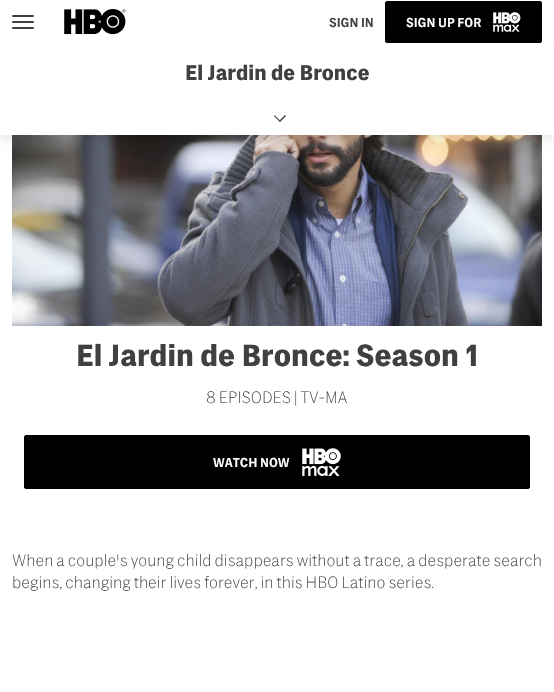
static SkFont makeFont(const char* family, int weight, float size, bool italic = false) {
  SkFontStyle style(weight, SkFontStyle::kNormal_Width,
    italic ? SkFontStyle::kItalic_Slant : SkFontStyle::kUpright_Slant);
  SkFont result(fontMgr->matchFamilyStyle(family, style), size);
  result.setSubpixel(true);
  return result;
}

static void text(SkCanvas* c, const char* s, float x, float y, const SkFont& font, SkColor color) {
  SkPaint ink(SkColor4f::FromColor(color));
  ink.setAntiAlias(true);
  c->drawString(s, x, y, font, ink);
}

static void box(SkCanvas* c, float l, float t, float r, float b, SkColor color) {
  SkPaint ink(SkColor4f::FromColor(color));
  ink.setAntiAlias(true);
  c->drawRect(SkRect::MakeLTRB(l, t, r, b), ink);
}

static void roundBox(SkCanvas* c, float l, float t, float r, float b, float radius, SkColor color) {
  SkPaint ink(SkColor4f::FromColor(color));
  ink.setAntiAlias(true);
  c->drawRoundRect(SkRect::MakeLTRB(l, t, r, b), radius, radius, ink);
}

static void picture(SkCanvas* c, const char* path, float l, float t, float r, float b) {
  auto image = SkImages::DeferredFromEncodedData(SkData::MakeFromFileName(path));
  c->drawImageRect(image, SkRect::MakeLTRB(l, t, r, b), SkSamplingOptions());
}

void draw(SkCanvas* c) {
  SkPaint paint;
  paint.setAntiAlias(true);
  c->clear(0xffffffff);
  picture(c, "img_03.png", 12, 135, 542, 326);
  paint.setColor(0x14000000);
  paint.setMaskFilter(SkMaskFilter::MakeBlur(kNormal_SkBlurStyle, 4));
  c->drawRect(SkRect::MakeLTRB(-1, 48, 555, 140), paint);
  paint.setMaskFilter(nullptr);
  box(c, 1, 43, 553, 45, 0xffffffff);
  roundBox(c, 12, 15, 34, 17, 1, 0xff404040);
  roundBox(c, 12, 21, 34, 23, 1, 0xff404040);
  roundBox(c, 12, 27, 34, 29, 1, 0xff404040);
  picture(c, "img_01.png", 64, 9, 126, 35);
  SkFont face1 = makeFont("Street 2", 500, 11);
  text(c, "SIGN IN", 329, 27, face1, 0xff404040);
  paint.setColor(0xff000000);
  c->drawRoundRect(SkRect::MakeLTRB(385.5f, 1.5f, 541.5f, 42.5f), 1.5f, 1.5f, paint);
  paint.setStyle(SkPaint::kStroke_Style);
  paint.setStrokeWidth(1);
  c->drawRoundRect(SkRect::MakeLTRB(385.5f, 1.5f, 541.5f, 42.5f), 1.5f, 1.5f, paint);
  text(c, "SIGN UP FOR", 406, 27, face1, 0xffffffff);
  picture(c, "img_02.png", 493, 12, 521, 32);
  box(c, 0, 45, 554, 135, 0xffffffff);
  SkFont face2 = makeFont("Street 2", 700, 18);
  text(c, "El Jardin de Bronce", 185, 80, face2, 0xff404040);
  paint.setStyle(SkPaint::kFill_Style);
  paint.setColor(0xff404040);
  c->drawPath(SkPathBuilder().moveTo(285, 115).lineTo(286, 116).lineTo(280, 122).lineTo(279, 121).close().detach(), paint);
  c->drawPath(SkPathBuilder().moveTo(274.5f, 115).lineTo(280.5f, 121).lineTo(280, 122).lineTo(274, 116).close().detach(), paint);
  SkFont face3 = makeFont("Street 2", 700, 26);
  text(c, "El Jardin de Bronce: Season 1", 76, 366, face3, 0xff404040);
  SkFont face4 = makeFont("Street 2", 100, 14);
  text(c, "8 EPISODES | TV-MA", 206, 403, face4, 0xff404040);
  paint.setColor(0xff000000);
  c->drawRoundRect(SkRect::MakeLTRB(24.5f, 435.5f, 529.5f, 488.5f), 1.5f, 1.5f, paint);
  paint.setStyle(SkPaint::kStroke_Style);
  c->drawRoundRect(SkRect::MakeLTRB(24.5f, 435.5f, 529.5f, 488.5f), 1.5f, 1.5f, paint);
  text(c, "WATCH NOW", 213, 467, face1, 0xffffffff);
  picture(c, "img_04.png", 302, 448, 341, 476);
  text(c, "When a couple's young child disappears without a trace, a desperate search", 12, 566, face4, 0xff404040);
  text(c, "begins, changing their lives forever, in this HBO Latino series.", 12, 588, face4, 0xff404040);
}
